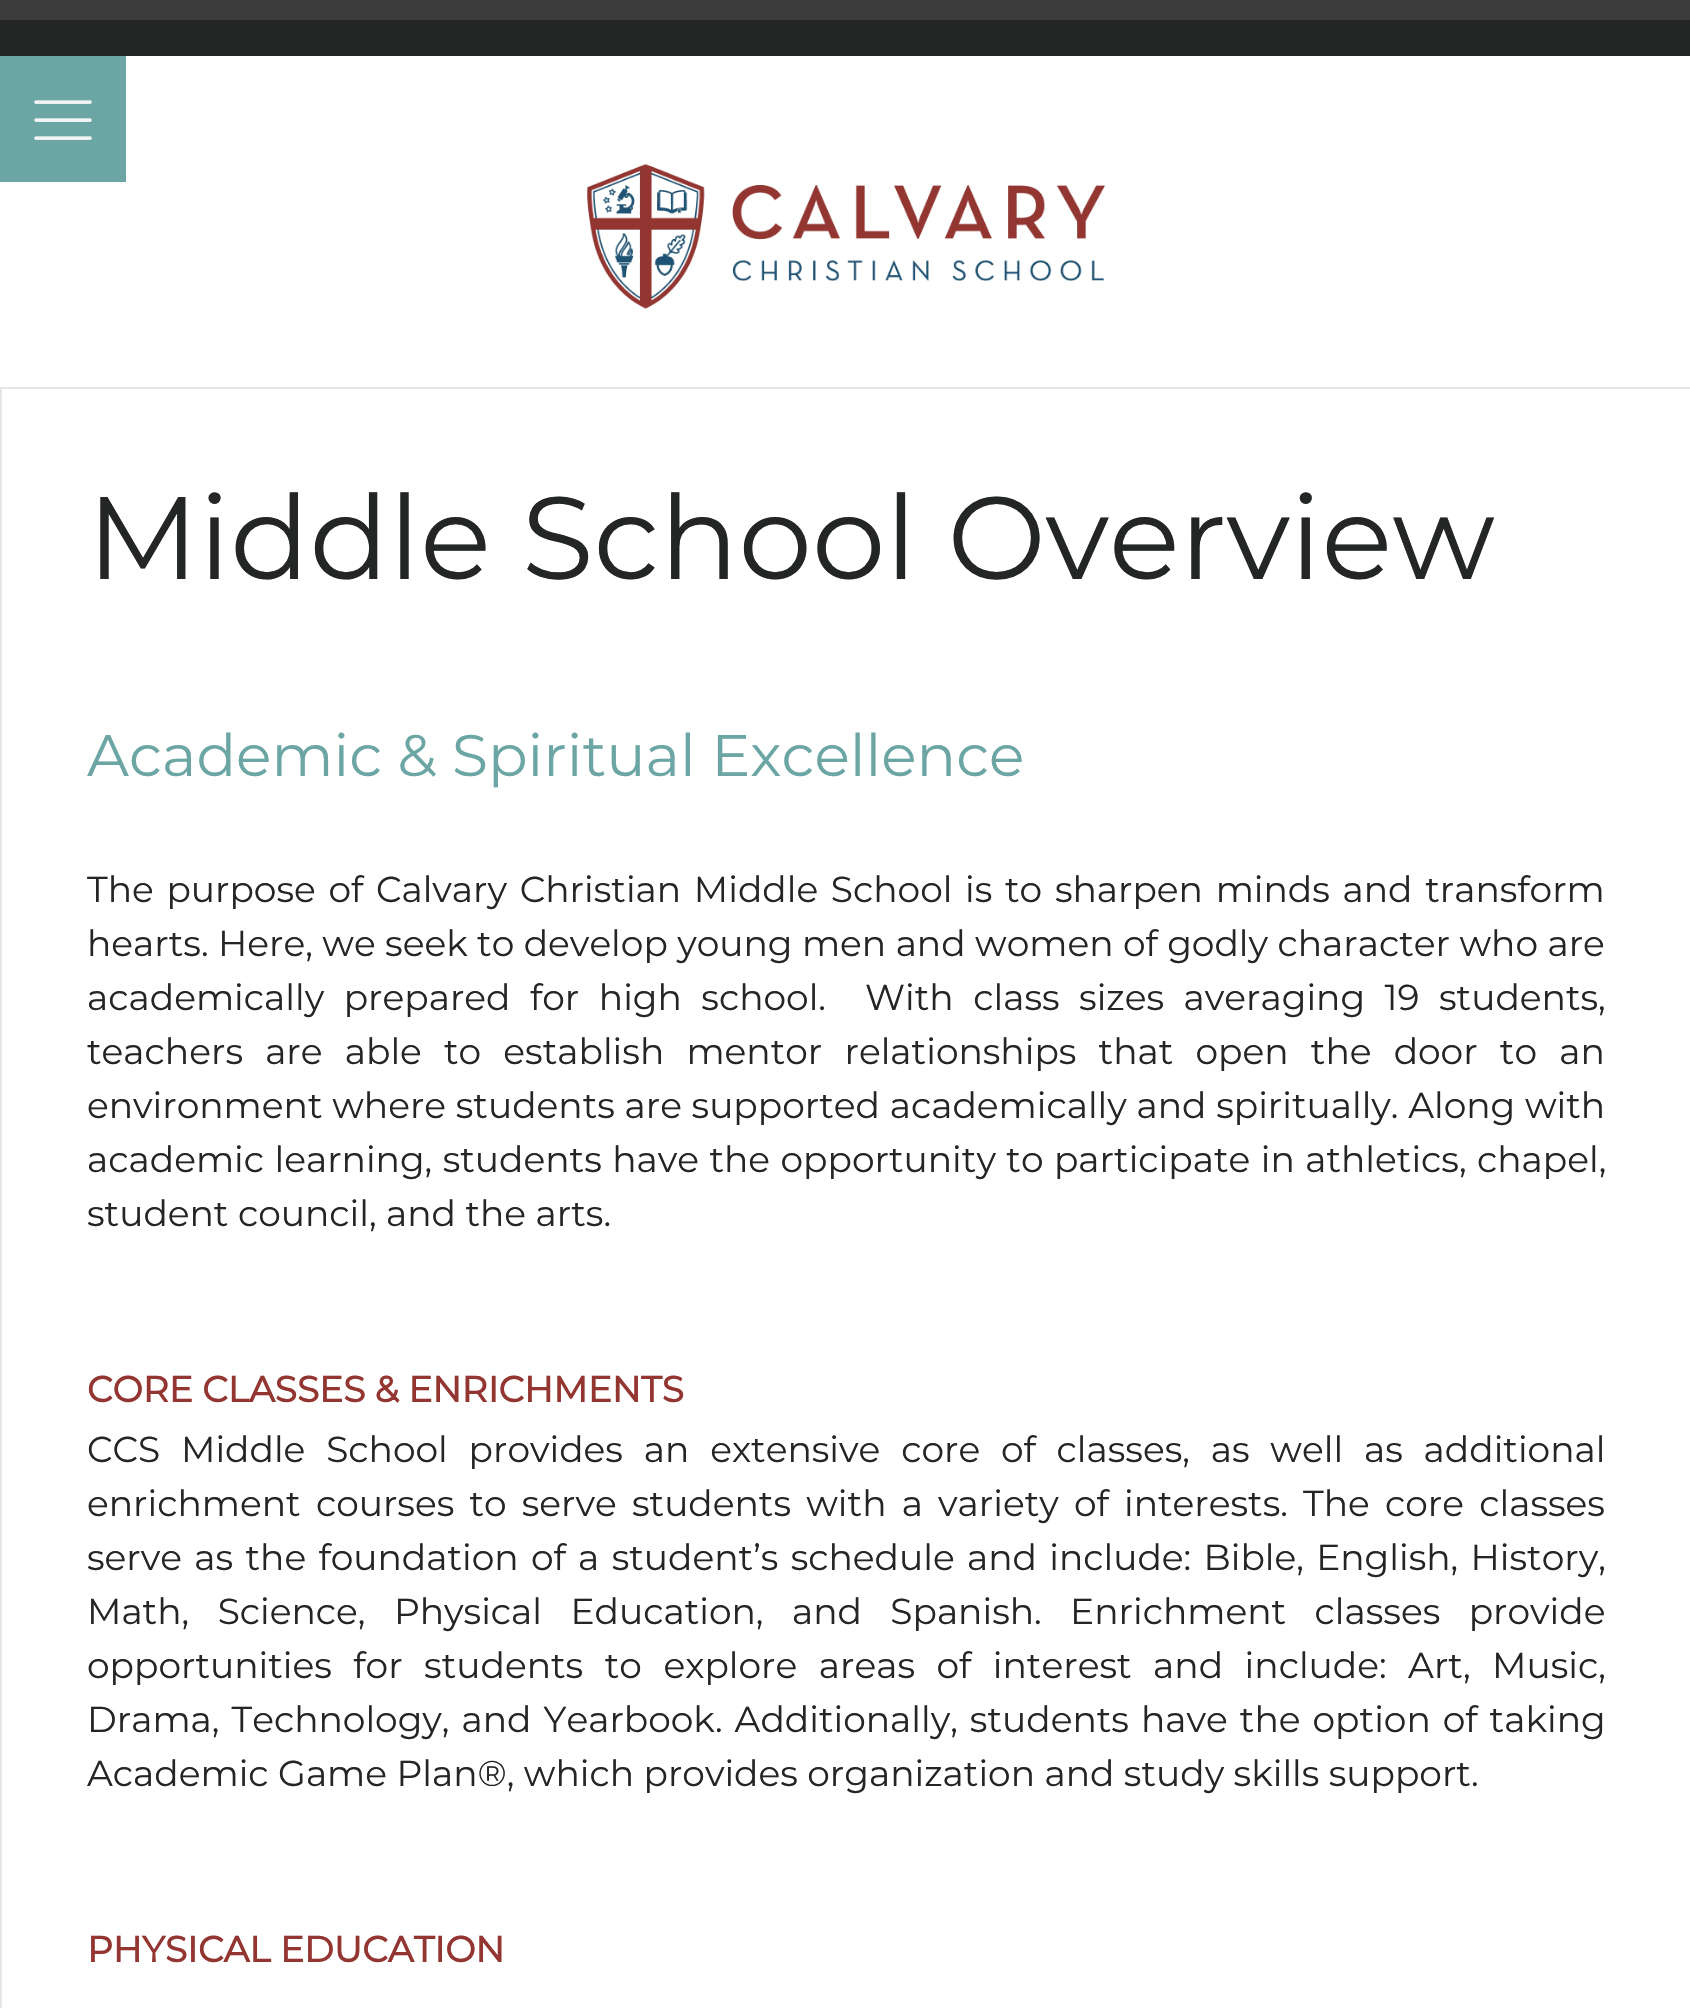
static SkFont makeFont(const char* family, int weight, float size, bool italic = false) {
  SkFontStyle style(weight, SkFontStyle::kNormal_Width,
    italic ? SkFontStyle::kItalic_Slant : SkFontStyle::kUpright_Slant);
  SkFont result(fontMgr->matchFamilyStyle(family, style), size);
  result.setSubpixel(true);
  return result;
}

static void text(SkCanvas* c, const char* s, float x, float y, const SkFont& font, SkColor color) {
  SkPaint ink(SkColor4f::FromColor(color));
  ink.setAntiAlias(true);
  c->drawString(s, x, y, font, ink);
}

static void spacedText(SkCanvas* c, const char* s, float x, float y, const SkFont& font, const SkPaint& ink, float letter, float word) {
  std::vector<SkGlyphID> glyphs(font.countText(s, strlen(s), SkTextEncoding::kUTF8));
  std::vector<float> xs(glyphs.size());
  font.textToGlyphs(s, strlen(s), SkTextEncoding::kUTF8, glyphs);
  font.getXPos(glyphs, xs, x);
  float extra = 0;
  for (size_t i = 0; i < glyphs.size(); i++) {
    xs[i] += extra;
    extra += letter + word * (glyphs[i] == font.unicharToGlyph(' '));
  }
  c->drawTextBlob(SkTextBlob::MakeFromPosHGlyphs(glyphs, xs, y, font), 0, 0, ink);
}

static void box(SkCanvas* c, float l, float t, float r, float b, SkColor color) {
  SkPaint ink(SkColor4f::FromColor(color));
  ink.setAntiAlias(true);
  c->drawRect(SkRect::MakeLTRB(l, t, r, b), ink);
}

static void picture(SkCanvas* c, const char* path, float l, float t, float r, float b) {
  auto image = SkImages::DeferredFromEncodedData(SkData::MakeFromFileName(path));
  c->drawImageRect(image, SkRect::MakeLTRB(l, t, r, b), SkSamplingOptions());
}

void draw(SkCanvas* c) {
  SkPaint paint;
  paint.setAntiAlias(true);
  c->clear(0xff242626);
  box(c, 0, 0, 1690, 20, 0xff3c3c3c);
  box(c, 0, 56, 1690, 387, 0xffffffff);
  box(c, 0, 56, 126, 182, 0xff6ba5a4);
  picture(c, "img_01.png", 34, 100, 92, 140);
  picture(c, "img_02.png", 587, 164, 1105, 309);
  paint.setColor(0xffffffff);
  c->drawRect(SkRect::MakeLTRB(1, 388, 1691, 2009), paint);
  paint.setStyle(SkPaint::kStroke_Style);
  paint.setStrokeWidth(2);
  paint.setColor(0xffe6e6e6);
  c->drawRect(SkRect::MakeLTRB(1, 388, 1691, 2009), paint);
  SkFont face1 = makeFont("Montserrat", 100, 117);
  text(c, "Middle School Overview", 87, 579, face1, 0xff242626);
  SkFont face2 = makeFont("Montserrat", 100, 58.5f);
  text(c, "Academic & Spiritual Excellence", 87, 776, face2, 0xff6ba5a4);
  SkFont face3 = makeFont("Montserrat", 100, 36);
  paint.setStyle(SkPaint::kFill_Style);
  paint.setColor(0xff242626);
  spacedText(c, "The purpose of Calvary Christian Middle School is to sharpen minds and transform", 87, 902, face3, paint, 0, 3.25f);
  text(c, "hearts. Here, we seek to develop young men and women of godly character who are", 87, 956, face3, 0xff242626);
  spacedText(c, "academically prepared for high school.  With class sizes averaging 19 students,", 87, 1010, face3, paint, 0, 10.1f);
  spacedText(c, "teachers are able to establish mentor relationships that open the door to an", 87, 1064, face3, paint, 0, 12.75f);
  spacedText(c, "environment where students are supported academically and spiritually. Along with", 87, 1118, face3, paint, 0, 0.25f);
  spacedText(c, "academic learning, students have the opportunity to participate in athletics, chapel,", 87, 1172, face3, paint, 0, 1);
  text(c, "student council, and the arts.", 87, 1226, face3, 0xff242626);
  SkFont face4 = makeFont("Montserrat", 700, 36);
  text(c, "CORE CLASSES & ENRICHMENTS", 87, 1402, face4, 0xff933631);
  spacedText(c, "CCS Middle School provides an extensive core of classes, as well as additional", 87, 1462, face3, paint, 0, 11.4f);
  spacedText(c, "enrichment courses to serve students with a variety of interests. The core classes", 87, 1516, face3, paint, 0, 5.75f);
  spacedText(c, "serve as the foundation of a student’s schedule and include: Bible, English, History,", 87, 1570, face3, paint, 0, 2.9f);
  spacedText(c, "Math, Science, Physical Education, and Spanish. Enrichment classes provide", 87, 1624, face3, paint, 0, 19);
  spacedText(c, "opportunities for students to explore areas of interest and include: Art, Music,", 87, 1678, face3, paint, 0, 12.1f);
  spacedText(c, "Drama, Technology, and Yearbook. Additionally, students have the option of taking", 87, 1732, face3, paint, 0, 2.6f);
  text(c, "Academic Game Plan®, which provides organization and study skills support.", 87, 1786, face3, 0xff242626);
  text(c, "PHYSICAL EDUCATION", 87, 1962, face4, 0xff933631);
}
